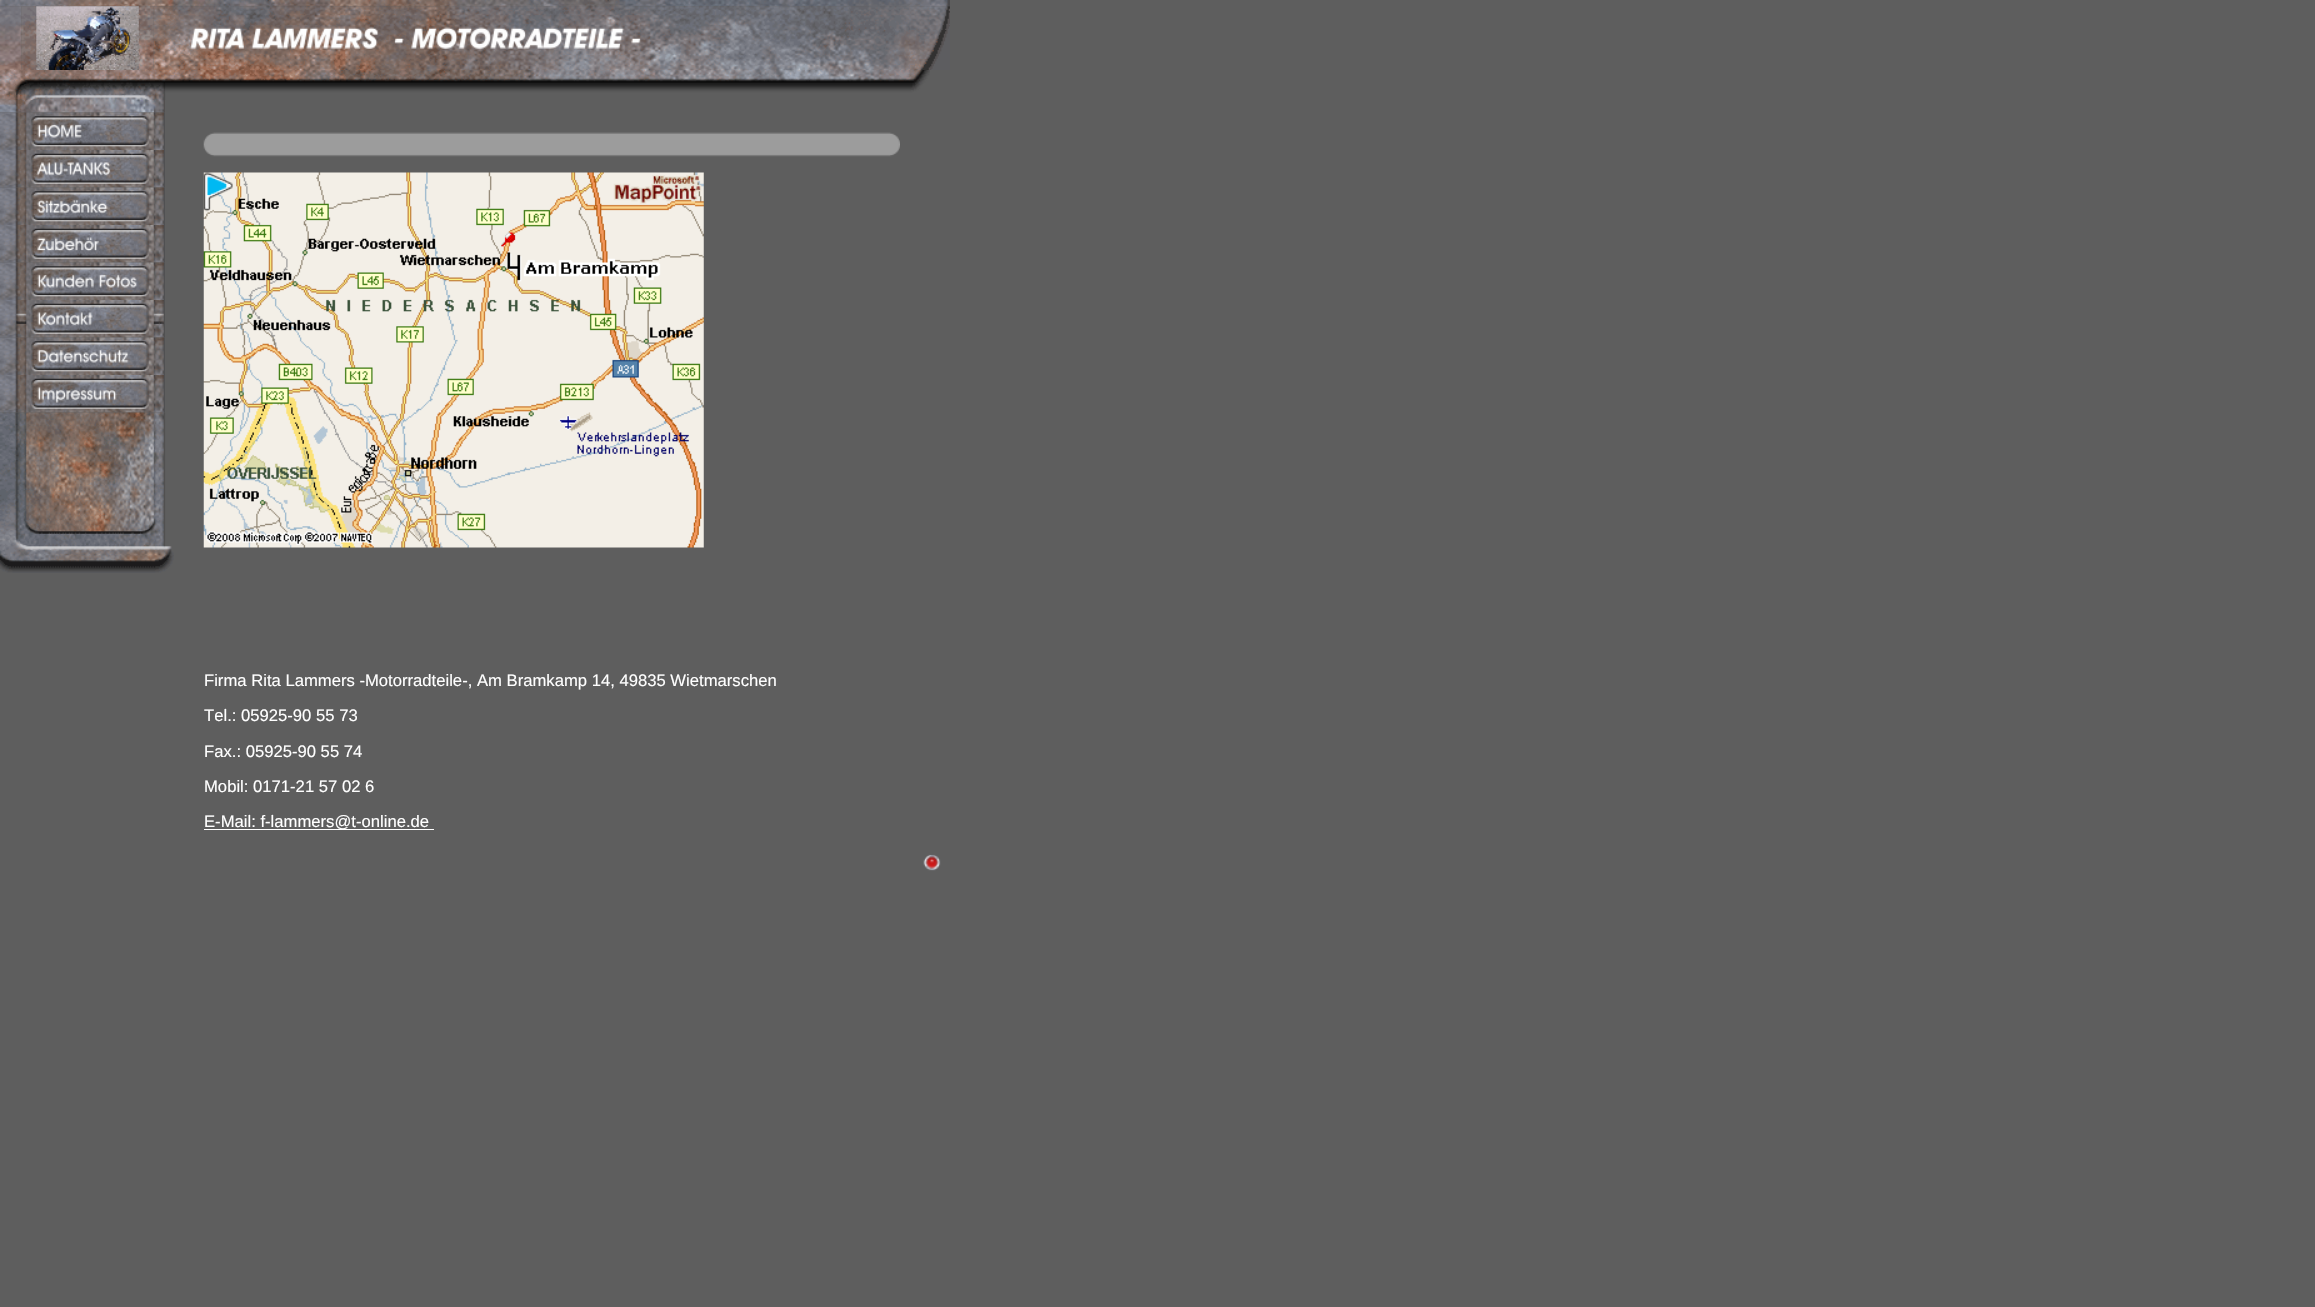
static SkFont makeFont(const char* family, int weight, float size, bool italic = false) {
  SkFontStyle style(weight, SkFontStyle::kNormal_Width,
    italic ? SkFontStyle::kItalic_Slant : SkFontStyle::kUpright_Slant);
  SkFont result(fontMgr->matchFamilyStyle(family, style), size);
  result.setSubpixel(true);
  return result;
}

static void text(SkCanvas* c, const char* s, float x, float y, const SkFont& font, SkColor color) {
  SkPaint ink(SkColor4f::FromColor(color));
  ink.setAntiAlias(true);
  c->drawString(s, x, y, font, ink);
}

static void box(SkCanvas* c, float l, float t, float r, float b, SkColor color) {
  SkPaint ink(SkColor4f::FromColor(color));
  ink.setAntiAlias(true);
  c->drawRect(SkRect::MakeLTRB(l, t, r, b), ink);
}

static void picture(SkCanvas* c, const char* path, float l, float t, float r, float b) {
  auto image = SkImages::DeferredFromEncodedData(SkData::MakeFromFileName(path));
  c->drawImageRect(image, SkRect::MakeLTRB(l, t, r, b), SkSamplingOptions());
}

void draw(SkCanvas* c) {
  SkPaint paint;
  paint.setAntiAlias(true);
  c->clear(0xff5e5e5e);
  picture(c, "img_01.png", 0, 0, 950, 7);
  picture(c, "img_02.png", 0, 6, 22, 70);
  picture(c, "img_03.png", 21, 6, 154, 70);
  picture(c, "img_04.png", 153, 6, 950, 70);
  picture(c, "img_05.png", 0, 70, 930, 100);
  picture(c, "img_06.png", 0, 100, 165, 113);
  picture(c, "img_07.png", 0, 112, 165, 150);
  picture(c, "img_08.png", 0, 150, 165, 188);
  picture(c, "img_09.png", 0, 187, 165, 225);
  picture(c, "img_10.png", 0, 225, 165, 263);
  picture(c, "img_11.png", 0, 262, 165, 300);
  picture(c, "img_12.png", 0, 300, 165, 338);
  picture(c, "img_13.png", 0, 337, 165, 375);
  picture(c, "img_14.png", 0, 375, 165, 413);
  picture(c, "img_15.png", 0, 412, 174, 573);
  picture(c, "img_16.png", 203, 132, 900, 157);
  picture(c, "img_17.png", 203, 172, 704, 548);
  picture(c, "img_18.png", 203, 172, 233, 212);
  SkFont face1 = makeFont("Liberation Sans", 400, 16.65f);
  text(c, "Firma Rita Lammers -Motorradteile-, Am Bramkamp 14, 49835 Wietmarschen", 204, 686, face1, 0xffffffff);
  text(c, "Tel.: 05925-90 55 73", 204, 721, face1, 0xffffffff);
  text(c, "Fax.: 05925-90 55 74", 204, 757, face1, 0xffffffff);
  text(c, "Mobil: 0171-21 57 02 6", 204, 792, face1, 0xffffffff);
  box(c, 204, 829, 434, 830, 0xffffffff);
  text(c, "E-Mail: f-lammers@t-online.de", 204, 827, face1, 0xffffffff);
  picture(c, "img_19.png", 923, 854, 941, 871);
}
